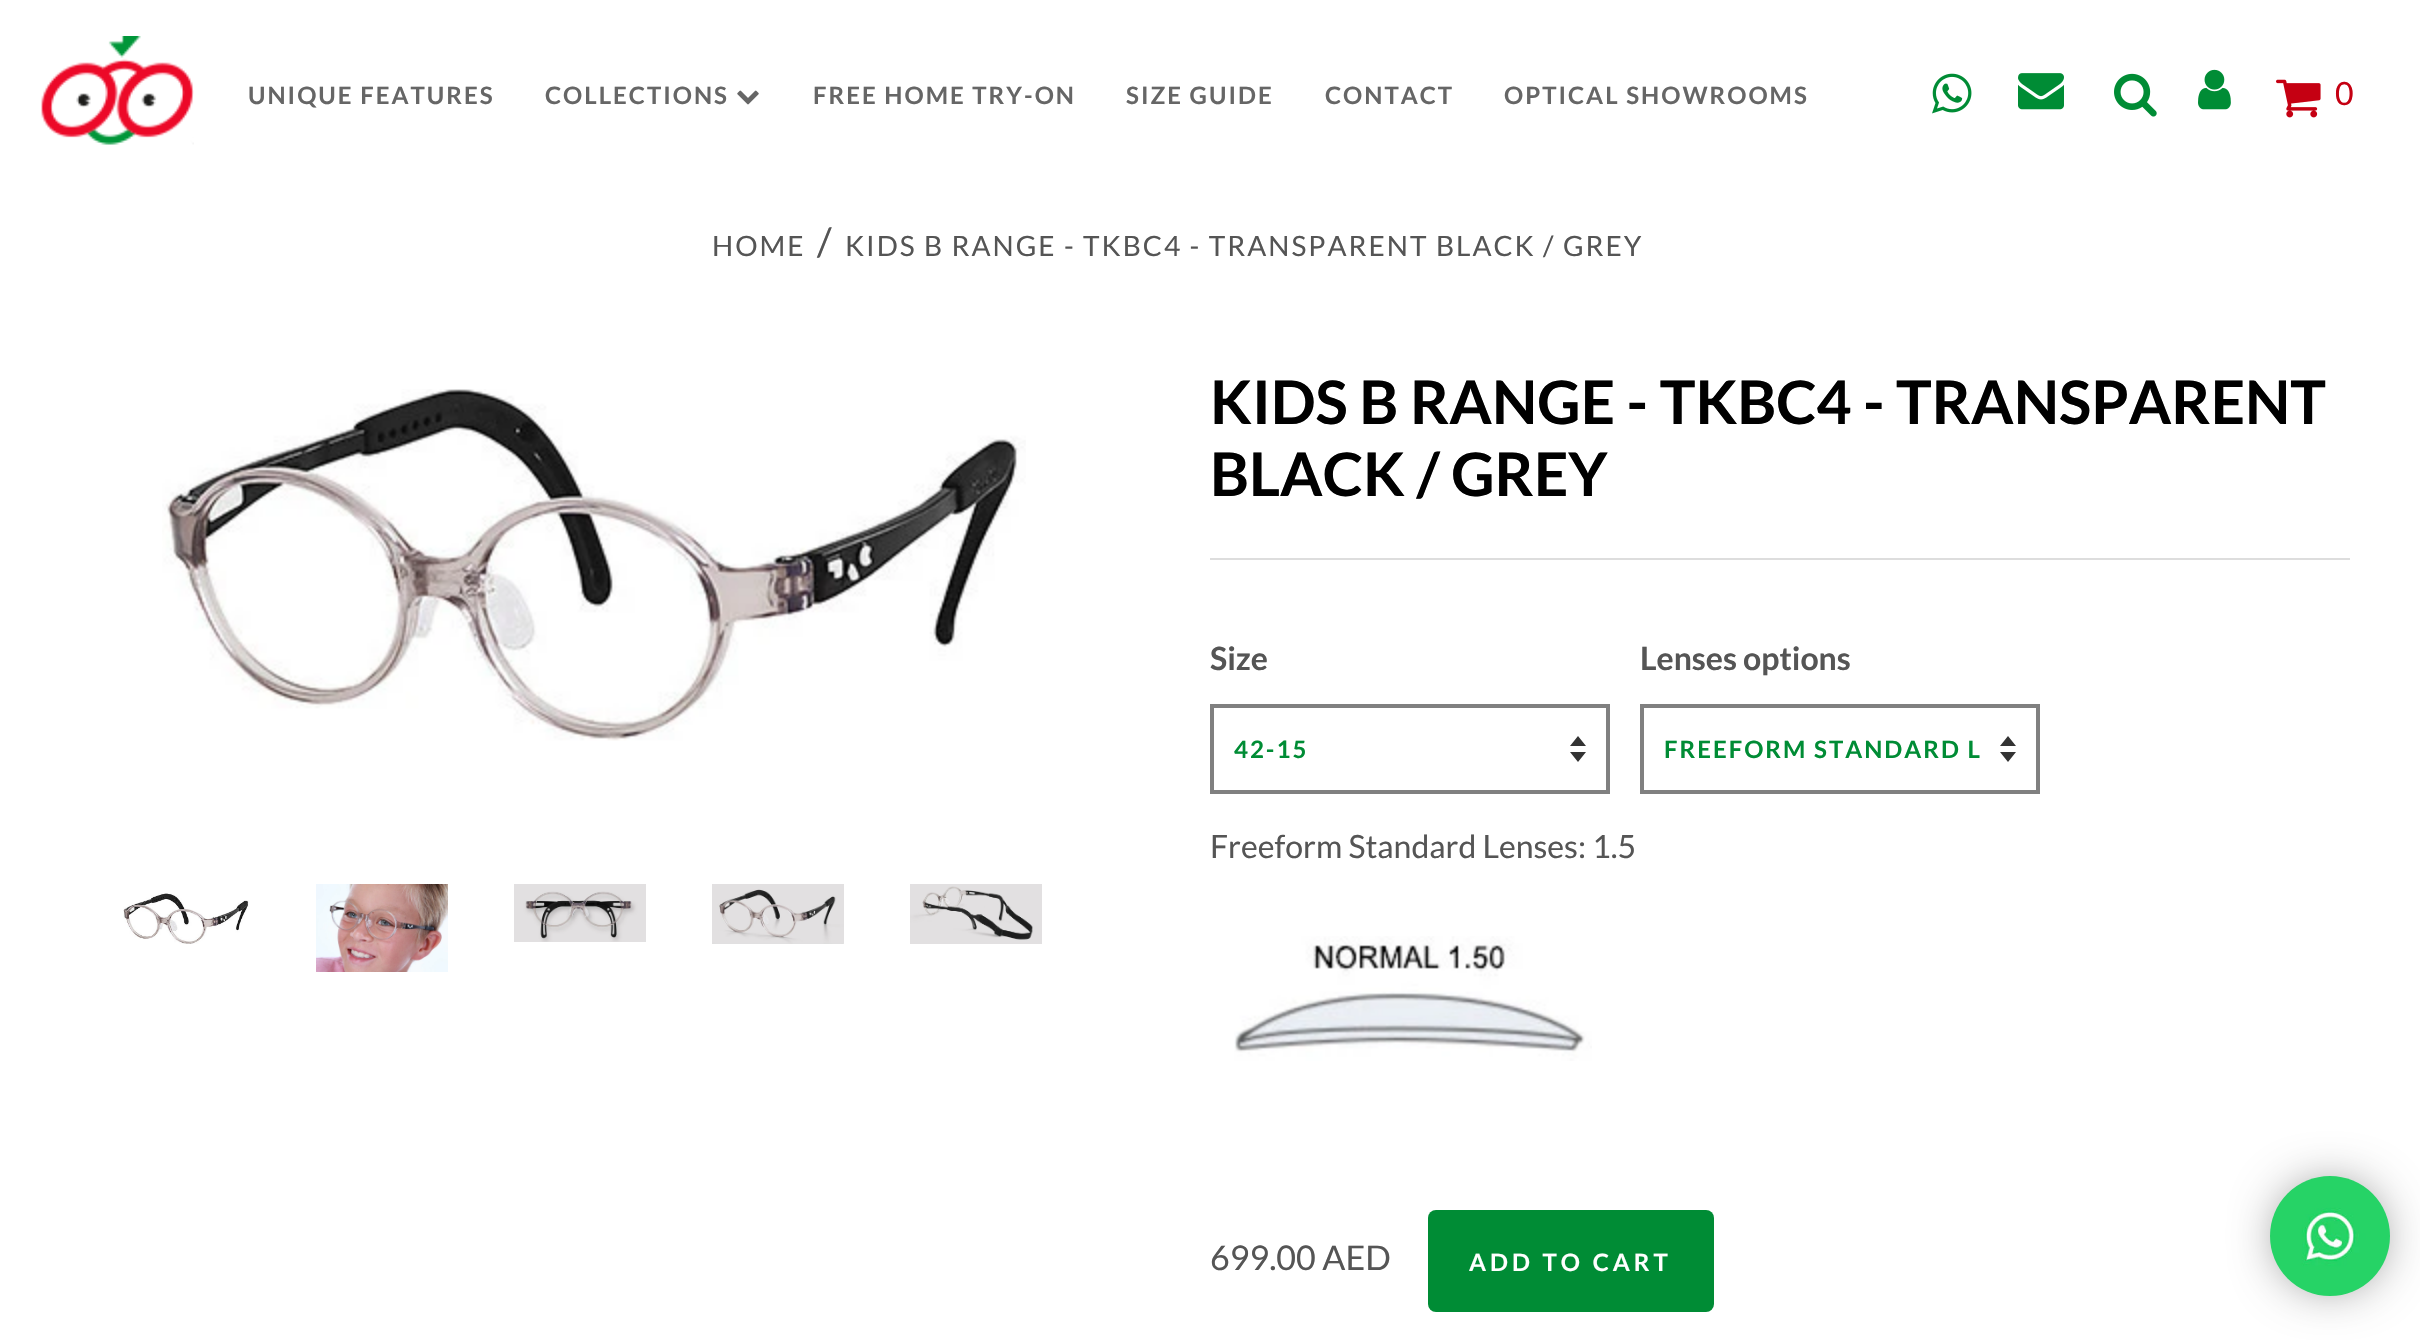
static SkFont makeFont(const char* family, int weight, float size, bool italic = false) {
  SkFontStyle style(weight, SkFontStyle::kNormal_Width,
    italic ? SkFontStyle::kItalic_Slant : SkFontStyle::kUpright_Slant);
  SkFont result(fontMgr->matchFamilyStyle(family, style), size);
  result.setSubpixel(true);
  return result;
}

static void text(SkCanvas* c, const char* s, float x, float y, const SkFont& font, SkColor color) {
  SkPaint ink(SkColor4f::FromColor(color));
  ink.setAntiAlias(true);
  c->drawString(s, x, y, font, ink);
}

static void spacedText(SkCanvas* c, const char* s, float x, float y, const SkFont& font, const SkPaint& ink, float letter, float word) {
  std::vector<SkGlyphID> glyphs(font.countText(s, strlen(s), SkTextEncoding::kUTF8));
  std::vector<float> xs(glyphs.size());
  font.textToGlyphs(s, strlen(s), SkTextEncoding::kUTF8, glyphs);
  font.getXPos(glyphs, xs, x);
  float extra = 0;
  for (size_t i = 0; i < glyphs.size(); i++) {
    xs[i] += extra;
    extra += letter + word * (glyphs[i] == font.unicharToGlyph(' '));
  }
  c->drawTextBlob(SkTextBlob::MakeFromPosHGlyphs(glyphs, xs, y, font), 0, 0, ink);
}

static void box(SkCanvas* c, float l, float t, float r, float b, SkColor color) {
  SkPaint ink(SkColor4f::FromColor(color));
  ink.setAntiAlias(true);
  c->drawRect(SkRect::MakeLTRB(l, t, r, b), ink);
}

static void roundBox(SkCanvas* c, float l, float t, float r, float b, float radius, SkColor color) {
  SkPaint ink(SkColor4f::FromColor(color));
  ink.setAntiAlias(true);
  c->drawRoundRect(SkRect::MakeLTRB(l, t, r, b), radius, radius, ink);
}

static void picture(SkCanvas* c, const char* path, float l, float t, float r, float b) {
  auto image = SkImages::DeferredFromEncodedData(SkData::MakeFromFileName(path));
  c->drawImageRect(image, SkRect::MakeLTRB(l, t, r, b), SkSamplingOptions());
}

void draw(SkCanvas* c) {
  SkPaint paint;
  paint.setAntiAlias(true);
  c->clear(0xffffffff);
  picture(c, "img_01.png", 41, 36, 194, 145);
  SkFont face1 = makeFont("Lato", 700, 24);
  paint.setColor(0xff666666);
  spacedText(c, "UNIQUE FEATURES", 248, 104, face1, paint, 2, 0);
  spacedText(c, "COLLECTIONS", 545, 104, face1, paint, 2, 0);
  picture(c, "img_02.png", 737, 90, 759, 105);
  spacedText(c, "FREE HOME TRY-ON", 813, 104, face1, paint, 2, 0);
  spacedText(c, "SIZE GUIDE", 1126, 104, face1, paint, 2, 0);
  spacedText(c, "CONTACT", 1325, 104, face1, paint, 2, 0);
  spacedText(c, "OPTICAL SHOWROOMS", 1504, 104, face1, paint, 2, 0);
  picture(c, "img_03.png", 1932, 73, 1972, 114);
  picture(c, "img_04.png", 2018, 73, 2064, 110);
  picture(c, "img_05.png", 2114, 73, 2157, 117);
  picture(c, "img_06.png", 2198, 69, 2231, 110);
  picture(c, "img_07.png", 2276, 79, 2321, 118);
  SkFont face2 = makeFont("Lato", 400, 32);
  text(c, "0", 2335, 105, face2, 0xffc50012);
  SkFont face3 = makeFont("Lato", 400, 28);
  paint.setColor(0xff555555);
  spacedText(c, "HOME", 712, 256, face3, paint, 2, 0);
  SkFont face4 = makeFont("Lato", 400, 39);
  spacedText(c, "/", 817, 256, face4, paint, 2, 0);
  spacedText(c, "KIDS B RANGE - TKBC4 - TRANSPARENT BLACK / GREY", 845, 256, face3, paint, 2, 0);
  picture(c, "img_08.png", 162, 389, 1026, 741);
  picture(c, "img_09.png", 123, 893, 249, 944);
  picture(c, "img_10.png", 316, 884, 448, 972);
  picture(c, "img_11.png", 514, 884, 646, 942);
  picture(c, "img_12.png", 712, 884, 844, 944);
  picture(c, "img_13.png", 910, 884, 1042, 944);
  SkFont face5 = makeFont("Lato", 700, 60);
  text(c, "KIDS B RANGE - TKBC4 - TRANSPARENT", 1210, 424, face5, 0xff000000);
  text(c, "BLACK / GREY", 1210, 496, face5, 0xff000000);
  box(c, 1210, 558, 2350, 560, 0xffdddddd);
  SkFont face6 = makeFont("Lato", 700, 32);
  text(c, "Size", 1210, 670, face6, 0xff555555);
  paint.setColor(0xff333333);
  c->drawPath(SkPathBuilder().moveTo(1570, 752).lineTo(1578, 762).lineTo(1586, 752).close().moveTo(1578, 736).lineTo(1570, 746).lineTo(1586, 746).close().detach(), paint);
  paint.setStyle(SkPaint::kStroke_Style);
  paint.setStrokeWidth(4);
  paint.setColor(0xff808080);
  c->drawRect(SkRect::MakeLTRB(1212, 706, 1608, 792), paint);
  paint.setStyle(SkPaint::kFill_Style);
  paint.setColor(0xff008c35);
  spacedText(c, "42-15", 1234, 758, face1, paint, 2, 0);
  text(c, "Lenses options", 1640, 670, face6, 0xff555555);
  paint.setColor(0xff333333);
  c->drawPath(SkPathBuilder().moveTo(2000, 752).lineTo(2008, 762).lineTo(2016, 752).close().moveTo(2008, 736).lineTo(2000, 746).lineTo(2016, 746).close().detach(), paint);
  paint.setStyle(SkPaint::kStroke_Style);
  paint.setColor(0xff808080);
  c->drawRect(SkRect::MakeLTRB(1642, 706, 2038, 792), paint);
  paint.setStyle(SkPaint::kFill_Style);
  paint.setColor(0xff008c35);
  spacedText(c, "FREEFORM STANDARD L", 1664, 758, face1, paint, 2, 0);
  text(c, "Freeform Standard Lenses: 1.5", 1210, 858, face2, 0xff555555);
  picture(c, "img_14.png", 1234, 936, 1592, 1061);
  SkFont face7 = makeFont("Lato", 400, 34);
  text(c, "699.00 AED", 1210, 1270, face7, 0xff555555);
  roundBox(c, 1428, 1210, 1714, 1312, 8, 0xff008c35);
  paint.setColor(0xffffffff);
  spacedText(c, "ADD TO CART", 1469, 1271, face1, paint, 4, 0);
  paint.setColor(0xa1000000);
  paint.setMaskFilter(SkMaskFilter::MakeBlur(kNormal_SkBlurStyle, 26));
  c->drawRoundRect(SkRect::MakeLTRB(2284, 1190, 2376, 1282), 46, 46, paint);
  paint.setMaskFilter(nullptr);
  picture(c, "img_15.png", 2270, 1176, 2390, 1296);
}
